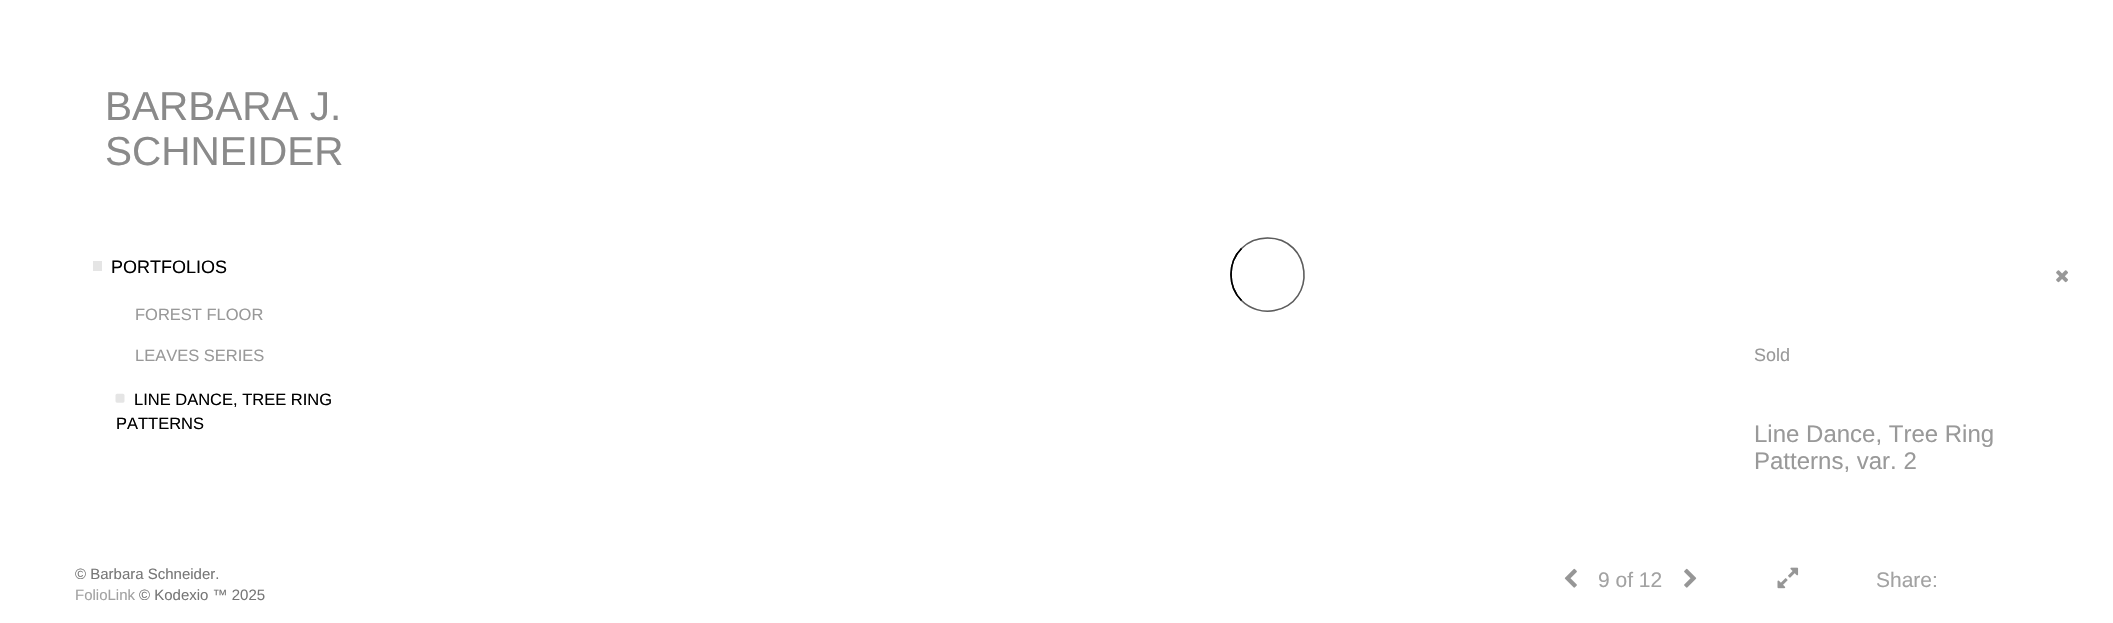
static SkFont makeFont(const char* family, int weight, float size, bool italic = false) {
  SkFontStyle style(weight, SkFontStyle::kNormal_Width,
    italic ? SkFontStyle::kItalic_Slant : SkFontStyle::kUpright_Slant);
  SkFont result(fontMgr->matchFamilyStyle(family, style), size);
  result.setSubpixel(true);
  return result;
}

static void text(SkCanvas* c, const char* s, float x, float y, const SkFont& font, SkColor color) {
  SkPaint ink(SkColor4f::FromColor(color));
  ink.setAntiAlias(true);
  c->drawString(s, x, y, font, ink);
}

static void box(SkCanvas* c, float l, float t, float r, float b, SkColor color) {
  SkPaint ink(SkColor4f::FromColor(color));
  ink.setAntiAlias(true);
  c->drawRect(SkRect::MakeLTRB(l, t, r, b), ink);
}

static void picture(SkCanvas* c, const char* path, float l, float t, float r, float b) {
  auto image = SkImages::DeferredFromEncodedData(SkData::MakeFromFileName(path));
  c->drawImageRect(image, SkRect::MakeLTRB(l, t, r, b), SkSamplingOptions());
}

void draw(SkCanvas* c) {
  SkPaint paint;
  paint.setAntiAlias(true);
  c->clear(0xffffffff);
  SkFont face1 = makeFont("Liberation Sans", 400, 40.5f);
  text(c, "BARBARA J.", 105, 120, face1, 0xff8a8a8a);
  text(c, "SCHNEIDER", 105, 165, face1, 0xff8a8a8a);
  box(c, 93, 261, 102, 271, 0xffe5e5e5);
  SkFont face2 = makeFont("Liberation Sans", 400, 18);
  text(c, "PORTFOLIOS", 111, 273, face2, 0xff000000);
  SkFont face3 = makeFont("Liberation Sans", 400, 16.5f);
  text(c, "FOREST FLOOR", 135, 320, face3, 0xff999999);
  text(c, "LEAVES SERIES", 135, 361, face3, 0xff999999);
  picture(c, "img_01.png", 115, 393, 125, 403);
  text(c, "LINE DANCE, TREE RING", 134, 405, face3, 0xff000000);
  text(c, "PATTERNS", 116, 429, face3, 0xff000000);
  picture(c, "img_02.png", 2056, 270, 2068, 283);
  text(c, "Sold", 1754, 361, face2, 0xff999999);
  SkFont face4 = makeFont("Liberation Sans", 400, 24);
  text(c, "Line Dance, Tree Ring", 1754, 442, face4, 0xff999999);
  text(c, "Patterns, var. 2", 1754, 469, face4, 0xff999999);
  paint.setStyle(SkPaint::kStroke_Style);
  paint.setStrokeWidth(1.5f);
  paint.setColor(0xff999999);
  c->drawPath(SkPathBuilder().moveTo(1241.5f, 248.5f).cubicTo(1248.5f, 241.5f, 1258, 238, 1267.5f, 238).cubicTo(1311.5f, 238, 1318, 302, 1274.5f, 310.5f).cubicTo(1263, 313, 1250, 309, 1241.5f, 300.5f).detach(), paint);
  paint.setColor(0xff000000);
  c->drawPath(SkPathBuilder().moveTo(1241.5f, 300.5f).cubicTo(1227.5f, 286.5f, 1227.5f, 262.5f, 1241.5f, 248.5f).detach(), paint);
  paint.setColor(0x66000000);
  c->drawPath(SkPathBuilder().moveTo(1241.5f, 248.5f).cubicTo(1248.5f, 241.5f, 1258, 238, 1267.5f, 238).cubicTo(1311.5f, 238, 1318, 302, 1274.5f, 310.5f).cubicTo(1263, 313, 1250, 309, 1241.5f, 300.5f).detach(), paint);
  paint.setColor(0xff000000);
  c->drawPath(SkPathBuilder().moveTo(1241.5f, 300.5f).cubicTo(1227.5f, 286.5f, 1227.5f, 262.5f, 1241.5f, 248.5f).detach(), paint);
  SkFont face5 = makeFont("Liberation Sans", 400, 15);
  text(c, "© Barbara Schneider.", 75, 579, face5, 0xff777777);
  text(c, "FolioLink", 75, 600, face5, 0xffa2a2a2);
  text(c, "© Kodexio ™ 2025", 139, 600, face5, 0xff777777);
  picture(c, "img_03.png", 1564, 568, 1577, 588);
  SkFont face6 = makeFont("Liberation Sans", 400, 21);
  text(c, "9 of 12", 1598, 587, face6, 0xffa2a2a2);
  picture(c, "img_04.png", 1684, 568, 1697, 588);
  picture(c, "img_05.png", 1777, 567, 1799, 589);
  text(c, "Share:", 1876, 587, face6, 0xffa2a2a2);
}
